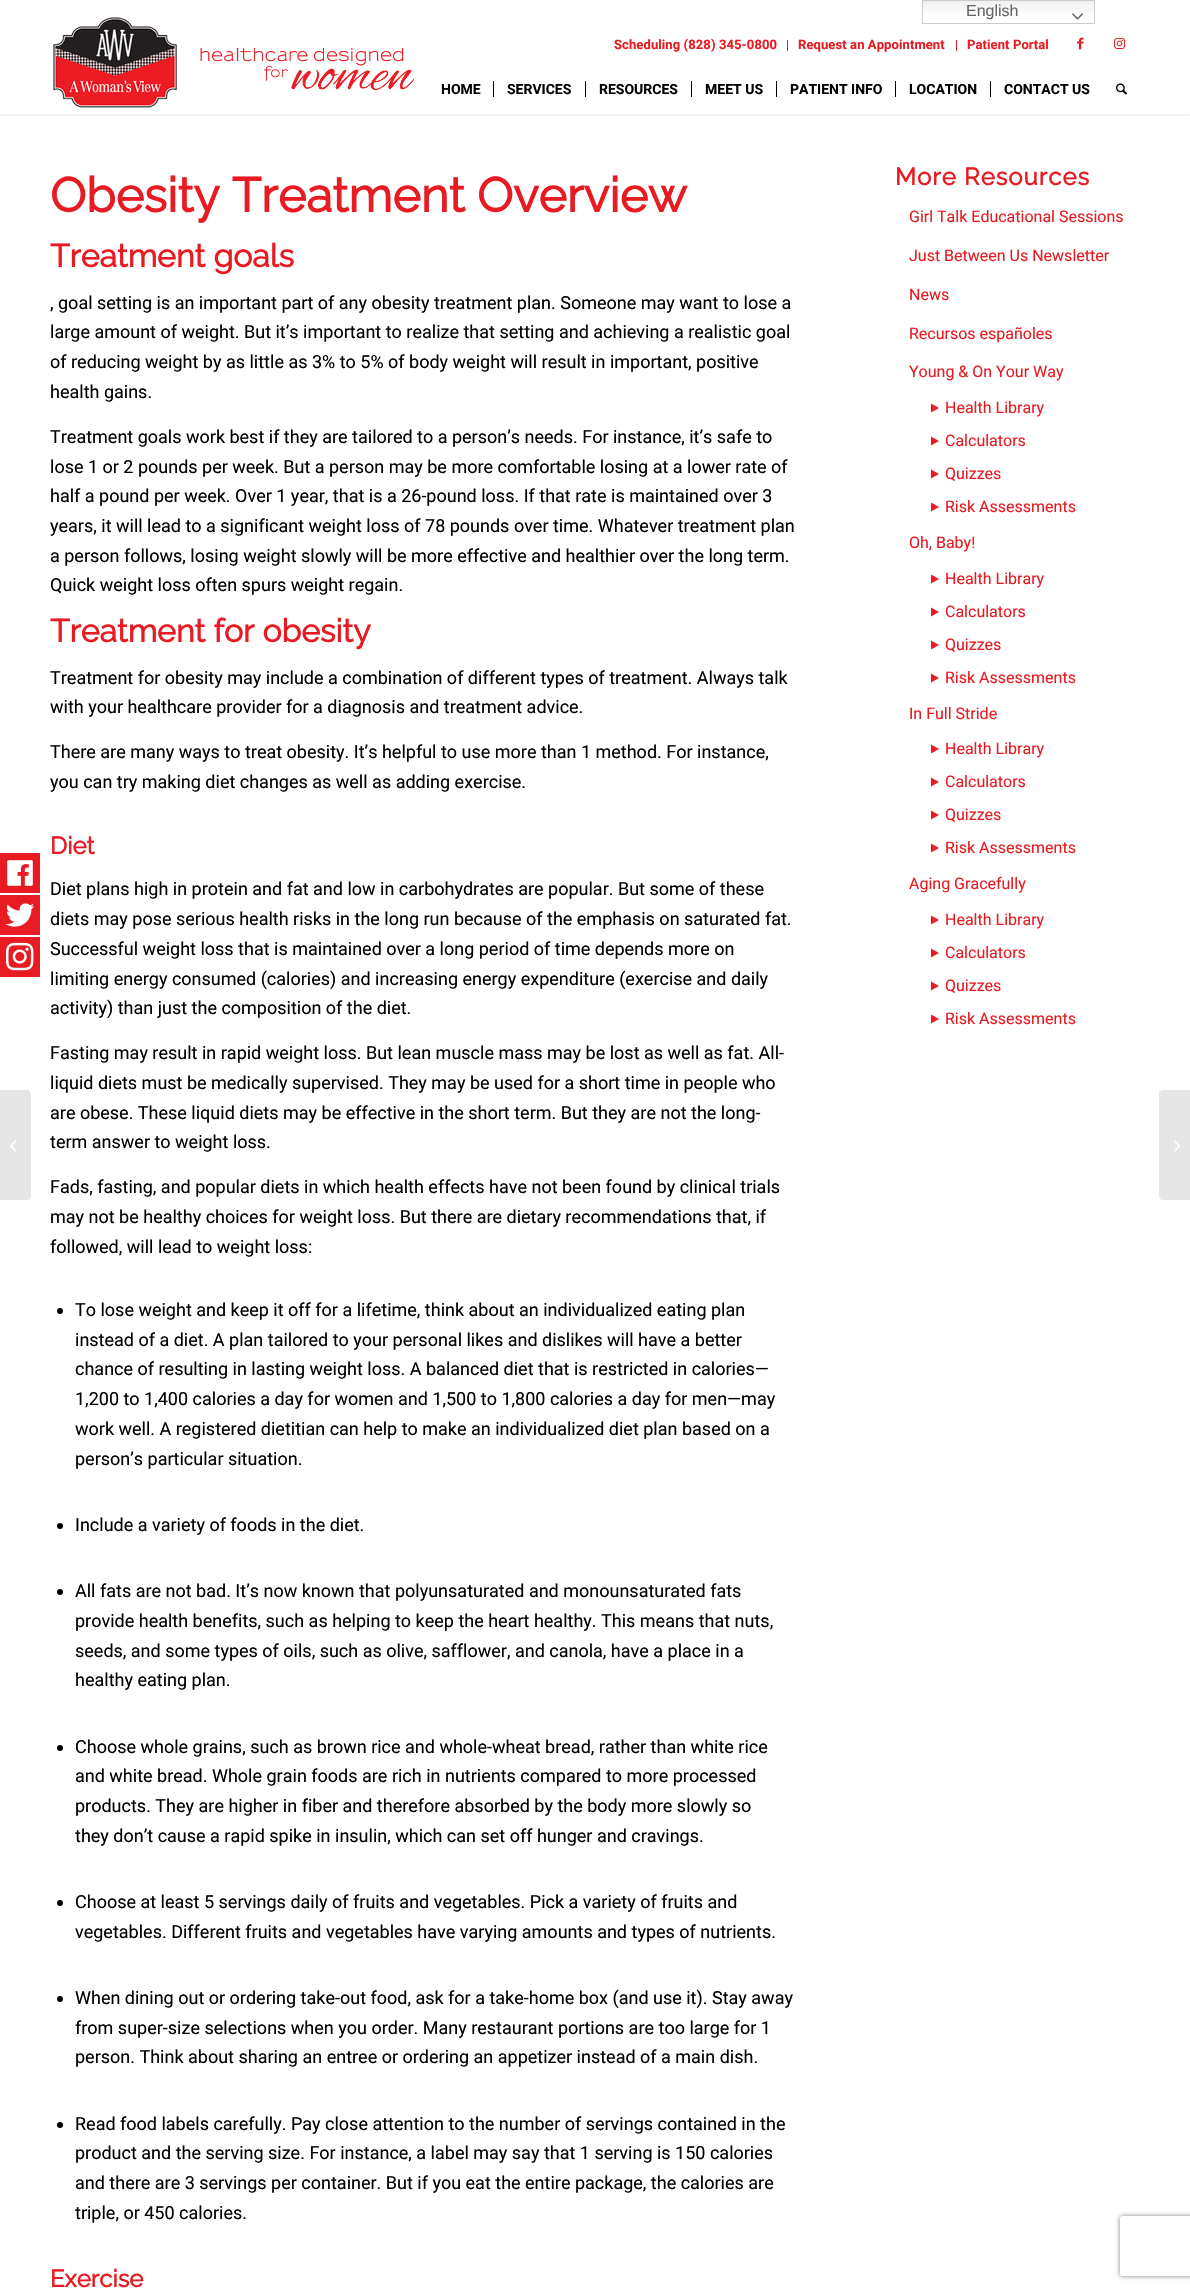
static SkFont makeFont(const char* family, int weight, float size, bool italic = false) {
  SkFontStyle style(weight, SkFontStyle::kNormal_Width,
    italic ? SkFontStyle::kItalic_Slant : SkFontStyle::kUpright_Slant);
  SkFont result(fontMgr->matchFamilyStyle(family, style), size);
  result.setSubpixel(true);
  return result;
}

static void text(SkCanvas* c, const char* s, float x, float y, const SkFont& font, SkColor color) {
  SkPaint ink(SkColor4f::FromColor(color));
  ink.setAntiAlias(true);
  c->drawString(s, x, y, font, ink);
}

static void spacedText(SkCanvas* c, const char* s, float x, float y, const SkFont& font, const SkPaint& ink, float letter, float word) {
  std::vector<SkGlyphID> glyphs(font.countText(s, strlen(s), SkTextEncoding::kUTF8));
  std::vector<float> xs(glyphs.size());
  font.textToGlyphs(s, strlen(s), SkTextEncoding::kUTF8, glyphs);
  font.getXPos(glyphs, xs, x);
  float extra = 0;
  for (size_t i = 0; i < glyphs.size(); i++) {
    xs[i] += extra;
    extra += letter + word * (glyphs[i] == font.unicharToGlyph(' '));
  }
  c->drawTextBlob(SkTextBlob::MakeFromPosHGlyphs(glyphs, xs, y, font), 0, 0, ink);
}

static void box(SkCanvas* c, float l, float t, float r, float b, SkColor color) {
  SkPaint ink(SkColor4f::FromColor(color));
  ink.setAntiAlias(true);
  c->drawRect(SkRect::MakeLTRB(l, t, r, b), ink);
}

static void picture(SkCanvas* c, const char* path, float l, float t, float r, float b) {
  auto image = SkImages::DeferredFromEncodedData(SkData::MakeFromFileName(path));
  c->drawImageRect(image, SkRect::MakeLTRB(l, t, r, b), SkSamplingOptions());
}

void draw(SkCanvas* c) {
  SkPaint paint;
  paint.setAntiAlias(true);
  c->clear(0xffffffff);
  c->save();
  c->clipRect(SkRect::MakeLTRB(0, 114, 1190, 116));
  paint.setColor(0x1a000000);
  paint.setMaskFilter(SkMaskFilter::MakeBlur(kNormal_SkBlurStyle, 1));
  c->drawRect(SkRect::MakeLTRB(-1, -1, 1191, 115), paint);
  paint.setMaskFilter(nullptr);
  c->restore();
  {
    const SkColor colors[] = {0xffefefef, 0xffffffff};
    const float stops[] = {0, 0.7f};
    const SkPoint ends[] = {{1009, 0}, {1009, 24}};
    paint.setShader(SkGradientShader::MakeLinear(ends, colors, stops, 2, SkTileMode::kClamp));
    paint.setAlpha(255);
  }
  c->drawRect(SkRect::MakeLTRB(923, 1, 1094, 14), paint);
  paint.setStyle(SkPaint::kStroke_Style);
  paint.setStrokeWidth(1);
  paint.setShader(nullptr);
  paint.setColor(0xffcccccc);
  c->drawRect(SkRect::MakeLTRB(922.5f, 0.5f, 1094.5f, 23.5f), paint);
  SkFont face1 = makeFont("Liberation Sans", 400, 16);
  text(c, "English", 966, 16, face1, 0xff666666);
  picture(c, "img_01.png", 1072, 13, 1083, 20);
  box(c, 0, 853, 40, 893, 0xffe81b22);
  picture(c, "img_02.png", 7, 860, 33, 886);
  box(c, 0, 895, 40, 935, 0xffe81b22);
  picture(c, "img_03.png", 5, 903, 35, 927);
  box(c, 0, 937, 40, 977, 0xffe81b22);
  picture(c, "img_04.png", 6, 942, 34, 971);
  box(c, 787, 40, 788, 51, 0xffe81b22);
  SkFont face2 = makeFont("Roboto", 700, 13);
  paint.setStyle(SkPaint::kFill_Style);
  paint.setColor(0xffe81b22);
  spacedText(c, "Scheduling (828) 345-0800", 614, 49, face2, paint, 0.1f, 0);
  box(c, 956, 40, 957, 51, 0xffe81b22);
  spacedText(c, "Request an Appointment", 798, 49, face2, paint, 0.1f, 0);
  spacedText(c, "Patient Portal", 967, 49, face2, paint, 0.1f, 0);
  picture(c, "img_05.png", 1077, 37, 1084, 50);
  picture(c, "img_06.png", 1114, 37, 1126, 49);
  picture(c, "img_07.png", 53, 17, 415, 108);
  SkFont face3 = makeFont("Roboto", 700, 14);
  text(c, "HOME", 441, 94, face3, 0xff000000);
  text(c, "SERVICES", 507, 94, face3, 0xff000000);
  box(c, 493, 81, 494, 97, 0xff000000);
  text(c, "RESOURCES", 599, 94, face3, 0xff000000);
  box(c, 585, 81, 586, 97, 0xff000000);
  text(c, "MEET US", 705, 94, face3, 0xff000000);
  box(c, 691, 81, 692, 97, 0xff000000);
  text(c, "PATIENT INFO", 790, 94, face3, 0xff000000);
  box(c, 776, 81, 777, 97, 0xff000000);
  text(c, "LOCATION", 909, 94, face3, 0xff000000);
  box(c, 895, 81, 896, 97, 0xff000000);
  text(c, "CONTACT US", 1004, 94, face3, 0xff000000);
  box(c, 990, 81, 991, 97, 0xff000000);
  picture(c, "img_08.png", 1116, 83, 1127, 95);
  paint.setColor(0xffe6e6e6);
  c->drawPath(SkPathBuilder().moveTo(0, 1090).lineTo(27, 1090).cubicTo(29, 1090, 31, 1092, 31, 1094).lineTo(31, 1196).cubicTo(31, 1198, 29, 1200, 27, 1200).lineTo(0, 1200).close().detach(), paint);
  picture(c, "img_09.png", 10, 1140, 16, 1152);
  SkFont face4 = makeFont("Raleway", 700, 48);
  text(c, "Obesity Treatment Overview", 50, 212, face4, 0xffe81b22);
  SkFont face5 = makeFont("Raleway", 700, 32);
  text(c, "Treatment goals", 50, 267, face5, 0xffe81b22);
  SkFont face6 = makeFont("Roboto", 400, 18);
  text(c, ", goal setting is an important part of any obesity treatment plan. Someone may want to lose a", 50, 309, face6, 0xff000000);
  text(c, "large amount of weight. But it’s important to realize that setting and achieving a realistic goal", 50, 338, face6, 0xff000000);
  text(c, "of reducing weight by as little as 3% to 5% of body weight will result in important, positive", 50, 368, face6, 0xff000000);
  text(c, "health gains.", 50, 398, face6, 0xff000000);
  text(c, "Treatment goals work best if they are tailored to a person’s needs. For instance, it’s safe to", 50, 443, face6, 0xff000000);
  text(c, "lose 1 or 2 pounds per week. But a person may be more comfortable losing at a lower rate of", 50, 473, face6, 0xff000000);
  text(c, "half a pound per week. Over 1 year, that is a 26-pound loss. If that rate is maintained over 3", 50, 502, face6, 0xff000000);
  text(c, "years, it will lead to a significant weight loss of 78 pounds over time. Whatever treatment plan", 50, 532, face6, 0xff000000);
  text(c, "a person follows, losing weight slowly will be more effective and healthier over the long term.", 50, 562, face6, 0xff000000);
  text(c, "Quick weight loss often spurs weight regain.", 50, 591, face6, 0xff000000);
  text(c, "Treatment for obesity", 50, 642, face5, 0xffe81b22);
  text(c, "Treatment for obesity may include a combination of different types of treatment. Always talk", 50, 684, face6, 0xff000000);
  text(c, "with your healthcare provider for a diagnosis and treatment advice.", 50, 713, face6, 0xff000000);
  text(c, "There are many ways to treat obesity. It’s helpful to use more than 1 method. For instance,", 50, 758, face6, 0xff000000);
  text(c, "you can try making diet changes as well as adding exercise.", 50, 788, face6, 0xff000000);
  SkFont face7 = makeFont("Raleway", 700, 24);
  text(c, "Diet", 50, 854, face7, 0xffe81b22);
  text(c, "Diet plans high in protein and fat and low in carbohydrates are popular. But some of these", 50, 895, face6, 0xff000000);
  text(c, "diets may pose serious health risks in the long run because of the emphasis on saturated fat.", 50, 925, face6, 0xff000000);
  text(c, "Successful weight loss that is maintained over a long period of time depends more on", 50, 955, face6, 0xff000000);
  text(c, "limiting energy consumed (calories) and increasing energy expenditure (exercise and daily", 50, 985, face6, 0xff000000);
  text(c, "activity) than just the composition of the diet.", 50, 1014, face6, 0xff000000);
  text(c, "Fasting may result in rapid weight loss. But lean muscle mass may be lost as well as fat. All-", 50, 1059, face6, 0xff000000);
  text(c, "liquid diets must be medically supervised. They may be used for a short time in people who", 50, 1089, face6, 0xff000000);
  text(c, "are obese. These liquid diets may be effective in the short term. But they are not the long-", 50, 1119, face6, 0xff000000);
  text(c, "term answer to weight loss.", 50, 1148, face6, 0xff000000);
  text(c, "Fads, fasting, and popular diets in which health effects have not been found by clinical trials", 50, 1193, face6, 0xff000000);
  text(c, "may not be healthy choices for weight loss. But there are dietary recommendations that, if", 50, 1223, face6, 0xff000000);
  text(c, "followed, will lead to weight loss:", 50, 1253, face6, 0xff000000);
  paint.setColor(0xff000000);
  c->drawCircle(60, 1311, 3, paint);
  text(c, "To lose weight and keep it off for a lifetime, think about an individualized eating plan", 75, 1316, face6, 0xff000000);
  text(c, "instead of a diet. A plan tailored to your personal likes and dislikes will have a better", 75, 1346, face6, 0xff000000);
  text(c, "chance of resulting in lasting weight loss. A balanced diet that is restricted in calories—", 75, 1375, face6, 0xff000000);
  text(c, "1,200 to 1,400 calories a day for women and 1,500 to 1,800 calories a day for men—may", 75, 1405, face6, 0xff000000);
  text(c, "work well. A registered dietitian can help to make an individualized diet plan based on a", 75, 1435, face6, 0xff000000);
  text(c, "person’s particular situation.", 75, 1465, face6, 0xff000000);
  c->drawCircle(60, 1526, 3, paint);
  text(c, "Include a variety of foods in the diet.", 75, 1531, face6, 0xff000000);
  c->drawCircle(60, 1592, 3, paint);
  text(c, "All fats are not bad. It’s now known that polyunsaturated and monounsaturated fats", 75, 1597, face6, 0xff000000);
  text(c, "provide health benefits, such as helping to keep the heart healthy. This means that nuts,", 75, 1627, face6, 0xff000000);
  text(c, "seeds, and some types of oils, such as olive, safflower, and canola, have a place in a", 75, 1657, face6, 0xff000000);
  text(c, "healthy eating plan.", 75, 1686, face6, 0xff000000);
  c->drawCircle(60, 1748, 3, paint);
  text(c, "Choose whole grains, such as brown rice and whole-wheat bread, rather than white rice", 75, 1753, face6, 0xff000000);
  text(c, "and white bread. Whole grain foods are rich in nutrients compared to more processed", 75, 1782, face6, 0xff000000);
  text(c, "products. They are higher in fiber and therefore absorbed by the body more slowly so", 75, 1812, face6, 0xff000000);
  text(c, "they don’t cause a rapid spike in insulin, which can set off hunger and cravings.", 75, 1842, face6, 0xff000000);
  c->drawCircle(60, 1903, 3, paint);
  text(c, "Choose at least 5 servings daily of fruits and vegetables. Pick a variety of fruits and", 75, 1908, face6, 0xff000000);
  text(c, "vegetables. Different fruits and vegetables have varying amounts and types of nutrients.", 75, 1938, face6, 0xff000000);
  c->drawCircle(60, 1999, 3, paint);
  text(c, "When dining out or ordering take-out food, ask for a take-home box (and use it). Stay away", 75, 2004, face6, 0xff000000);
  text(c, "from super-size selections when you order. Many restaurant portions are too large for 1", 75, 2034, face6, 0xff000000);
  text(c, "person. Think about sharing an entree or ordering an appetizer instead of a main dish.", 75, 2063, face6, 0xff000000);
  c->drawCircle(60, 2125, 3, paint);
  text(c, "Read food labels carefully. Pay close attention to the number of servings contained in the", 75, 2130, face6, 0xff000000);
  text(c, "product and the serving size. For instance, a label may say that 1 serving is 150 calories", 75, 2159, face6, 0xff000000);
  text(c, "and there are 3 servings per container. But if you eat the entire package, the calories are", 75, 2189, face6, 0xff000000);
  text(c, "triple, or 450 calories.", 75, 2219, face6, 0xff000000);
  text(c, "Exercise", 50, 2287, face7, 0xffe81b22);
  paint.setColor(0xffe81b22);
  spacedText(c, "More Resources", 895, 185, face7, paint, 1, 0);
  SkFont face8 = makeFont("Roboto", 400, 16);
  text(c, "Girl Talk Educational Sessions", 909, 222, face8, 0xffe81b22);
  text(c, "Just Between Us Newsletter", 909, 261, face8, 0xffe81b22);
  text(c, "News", 909, 300, face8, 0xffe81b22);
  text(c, "Recursos españoles", 909, 339, face8, 0xffe81b22);
  text(c, "Young & On Your Way", 909, 377, face8, 0xffe81b22);
  c->drawPath(SkPathBuilder().moveTo(931, 403.5f).lineTo(939, 408).lineTo(931, 412.5f).close().detach(), paint);
  text(c, "Health Library", 945, 413, face8, 0xffe81b22);
  c->drawPath(SkPathBuilder().moveTo(931, 436.5f).lineTo(939, 441).lineTo(931, 445.5f).close().detach(), paint);
  text(c, "Calculators", 945, 446, face8, 0xffe81b22);
  c->drawPath(SkPathBuilder().moveTo(931, 469.5f).lineTo(939, 474).lineTo(931, 478.5f).close().detach(), paint);
  text(c, "Quizzes", 945, 479, face8, 0xffe81b22);
  c->drawPath(SkPathBuilder().moveTo(931, 502.5f).lineTo(939, 507).lineTo(931, 511.5f).close().detach(), paint);
  text(c, "Risk Assessments", 945, 512, face8, 0xffe81b22);
  text(c, "Oh, Baby!", 909, 548, face8, 0xffe81b22);
  c->drawPath(SkPathBuilder().moveTo(931, 574.5f).lineTo(939, 579).lineTo(931, 583.5f).close().detach(), paint);
  text(c, "Health Library", 945, 584, face8, 0xffe81b22);
  c->drawPath(SkPathBuilder().moveTo(931, 607.5f).lineTo(939, 612).lineTo(931, 616.5f).close().detach(), paint);
  text(c, "Calculators", 945, 617, face8, 0xffe81b22);
  c->drawPath(SkPathBuilder().moveTo(931, 640.5f).lineTo(939, 645).lineTo(931, 649.5f).close().detach(), paint);
  text(c, "Quizzes", 945, 650, face8, 0xffe81b22);
  c->drawPath(SkPathBuilder().moveTo(931, 673.5f).lineTo(939, 678).lineTo(931, 682.5f).close().detach(), paint);
  text(c, "Risk Assessments", 945, 683, face8, 0xffe81b22);
  text(c, "In Full Stride", 909, 719, face8, 0xffe81b22);
  c->drawPath(SkPathBuilder().moveTo(931, 744.5f).lineTo(939, 749).lineTo(931, 753.5f).close().detach(), paint);
  text(c, "Health Library", 945, 754, face8, 0xffe81b22);
  c->drawPath(SkPathBuilder().moveTo(931, 777.5f).lineTo(939, 782).lineTo(931, 786.5f).close().detach(), paint);
  text(c, "Calculators", 945, 787, face8, 0xffe81b22);
  c->drawPath(SkPathBuilder().moveTo(931, 810.5f).lineTo(939, 815).lineTo(931, 819.5f).close().detach(), paint);
  text(c, "Quizzes", 945, 820, face8, 0xffe81b22);
  c->drawPath(SkPathBuilder().moveTo(931, 843.5f).lineTo(939, 848).lineTo(931, 852.5f).close().detach(), paint);
  text(c, "Risk Assessments", 945, 853, face8, 0xffe81b22);
  text(c, "Aging Gracefully", 909, 889, face8, 0xffe81b22);
  c->drawPath(SkPathBuilder().moveTo(931, 915.5f).lineTo(939, 920).lineTo(931, 924.5f).close().detach(), paint);
  text(c, "Health Library", 945, 925, face8, 0xffe81b22);
  c->drawPath(SkPathBuilder().moveTo(931, 948.5f).lineTo(939, 953).lineTo(931, 957.5f).close().detach(), paint);
  text(c, "Calculators", 945, 958, face8, 0xffe81b22);
  c->drawPath(SkPathBuilder().moveTo(931, 981.5f).lineTo(939, 986).lineTo(931, 990.5f).close().detach(), paint);
  text(c, "Quizzes", 945, 991, face8, 0xffe81b22);
  c->drawPath(SkPathBuilder().moveTo(931, 1014.5f).lineTo(939, 1019).lineTo(931, 1023.5f).close().detach(), paint);
  text(c, "Risk Assessments", 945, 1024, face8, 0xffe81b22);
  paint.setColor(0xffe6e6e6);
  c->drawPath(SkPathBuilder().moveTo(1163, 1090).lineTo(1190, 1090).lineTo(1190, 1200).lineTo(1163, 1200).cubicTo(1161, 1200, 1159, 1198, 1159, 1196).lineTo(1159, 1094).cubicTo(1159, 1092, 1161, 1090, 1163, 1090).close().detach(), paint);
  picture(c, "img_10.png", 1174, 1140, 1180, 1152);
  c->save();
  c->clipPath(SkPathBuilder(SkPathFillType::kEvenOdd).moveTo(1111, 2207).lineTo(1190, 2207).lineTo(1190, 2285).lineTo(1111, 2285).close().moveTo(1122, 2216).lineTo(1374, 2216).cubicTo(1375, 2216, 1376, 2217, 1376, 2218).lineTo(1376, 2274).cubicTo(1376, 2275, 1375, 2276, 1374, 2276).lineTo(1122, 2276).cubicTo(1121, 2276, 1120, 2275, 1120, 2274).lineTo(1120, 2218).cubicTo(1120, 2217, 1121, 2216, 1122, 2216).close().detach(), true);
  paint.setColor(0xff808080);
  paint.setMaskFilter(SkMaskFilter::MakeBlur(kNormal_SkBlurStyle, 2.5f));
  c->drawRoundRect(SkRect::MakeLTRB(1120, 2216, 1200, 2276), 2, 2, paint);
  paint.setMaskFilter(nullptr);
  c->restore();
}
